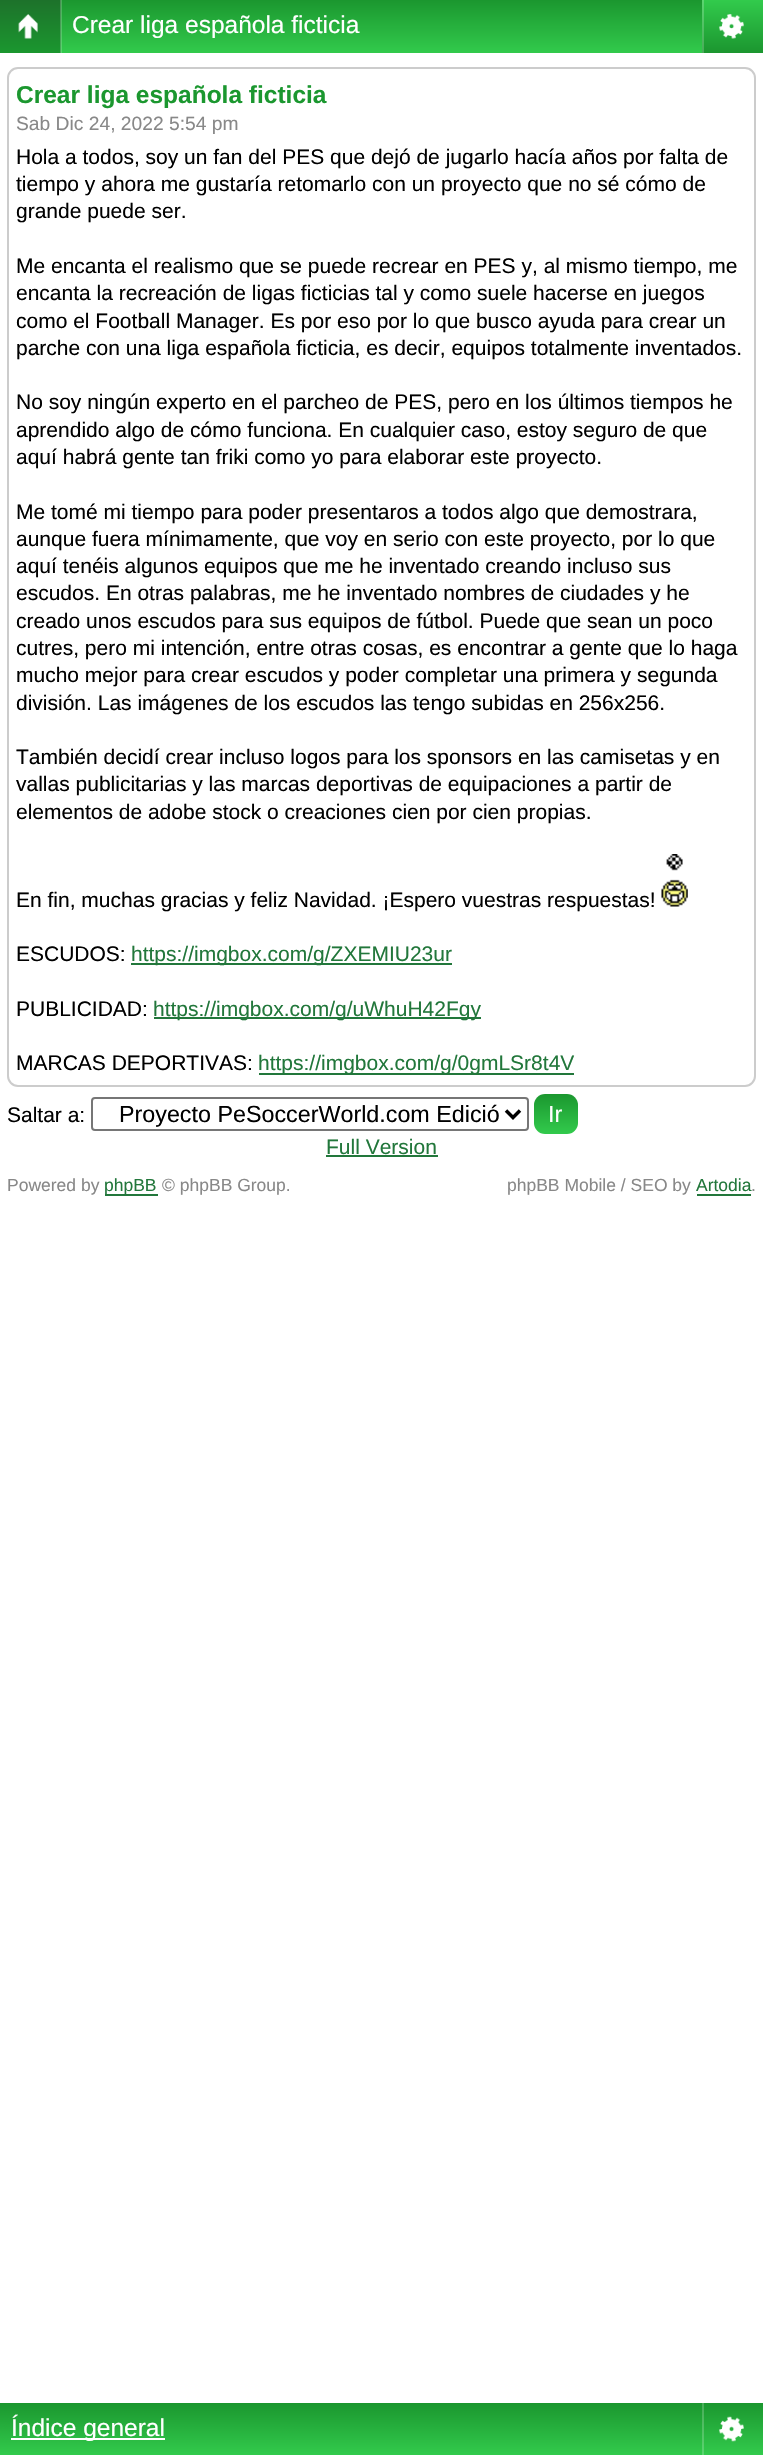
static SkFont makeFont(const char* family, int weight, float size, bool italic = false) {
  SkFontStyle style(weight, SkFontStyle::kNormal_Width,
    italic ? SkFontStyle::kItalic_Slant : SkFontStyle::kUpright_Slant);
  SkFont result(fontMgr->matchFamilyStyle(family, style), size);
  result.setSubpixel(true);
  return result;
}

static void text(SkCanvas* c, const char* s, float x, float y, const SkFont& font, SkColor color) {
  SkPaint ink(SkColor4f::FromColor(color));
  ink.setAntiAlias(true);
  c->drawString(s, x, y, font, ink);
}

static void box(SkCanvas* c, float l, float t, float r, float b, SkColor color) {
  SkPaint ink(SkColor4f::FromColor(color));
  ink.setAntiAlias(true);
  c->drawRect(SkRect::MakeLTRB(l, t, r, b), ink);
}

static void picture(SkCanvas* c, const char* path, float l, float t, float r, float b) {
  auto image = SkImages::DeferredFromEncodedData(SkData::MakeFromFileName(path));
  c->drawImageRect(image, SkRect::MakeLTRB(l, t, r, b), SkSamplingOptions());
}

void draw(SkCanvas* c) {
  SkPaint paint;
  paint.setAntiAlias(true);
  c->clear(0xffffffff);
  {
    const SkColor colors[] = {0xff1b972f, 0xff32ca4c};
    const float stops[] = {0, 1};
    const SkPoint ends[] = {{382, 0}, {382, 53}};
    paint.setShader(SkGradientShader::MakeLinear(ends, colors, stops, 2, SkTileMode::kClamp));
    paint.setAlpha(255);
  }
  c->drawRect(SkRect::MakeLTRB(62, 0, 702, 53), paint);
  {
    const SkColor colors[] = {0xff49ac59, 0xff5bd570};
    const float stops[] = {0, 1};
    const SkPoint ends[] = {{382, 0}, {382, 53}};
    paint.setShader(SkGradientShader::MakeLinear(ends, colors, stops, 2, SkTileMode::kClamp));
    paint.setAlpha(255);
  }
  c->drawRect(SkRect::MakeLTRB(61, 0, 62, 53), paint);
  {
    const SkColor colors[] = {0xff1d722b, 0xff1b972f};
    const float stops[] = {0, 1};
    const SkPoint ends[] = {{31, 0}, {31, 53}};
    paint.setShader(SkGradientShader::MakeLinear(ends, colors, stops, 2, SkTileMode::kClamp));
    paint.setAlpha(255);
  }
  c->drawRect(SkRect::MakeLTRB(0, 0, 60, 53), paint);
  {
    const SkColor colors[] = {0xff4a8e55, 0xff49ac59};
    const float stops[] = {0, 1};
    const SkPoint ends[] = {{31, 0}, {31, 53}};
    paint.setShader(SkGradientShader::MakeLinear(ends, colors, stops, 2, SkTileMode::kClamp));
    paint.setAlpha(255);
  }
  c->drawRect(SkRect::MakeLTRB(60, 0, 61, 53), paint);
  picture(c, "img_01.png", 18, 14, 38, 39);
  SkFont face1 = makeFont("Liberation Sans", 400, 24.5f);
  text(c, "Crear liga española ficticia", 72, 33, face1, 0xffffffff);
  {
    const SkColor colors[] = {0xff32ca4c, 0xff1b962f};
    const float stops[] = {0, 1};
    const SkPoint ends[] = {{732, 0}, {732, 53}};
    paint.setShader(SkGradientShader::MakeLinear(ends, colors, stops, 2, SkTileMode::kClamp));
    paint.setAlpha(255);
  }
  c->drawRect(SkRect::MakeLTRB(704, 0, 763, 53), paint);
  {
    const SkColor colors[] = {0xff5bd570, 0xff49ab59};
    const float stops[] = {0, 1};
    const SkPoint ends[] = {{732, 0}, {732, 53}};
    paint.setShader(SkGradientShader::MakeLinear(ends, colors, stops, 2, SkTileMode::kClamp));
    paint.setAlpha(255);
  }
  c->drawRect(SkRect::MakeLTRB(702, 0, 704, 53), paint);
  picture(c, "img_02.png", 719, 14, 744, 39);
  paint.setStyle(SkPaint::kStroke_Style);
  paint.setStrokeWidth(2);
  paint.setShader(nullptr);
  paint.setColor(0xffcccccc);
  c->drawRoundRect(SkRect::MakeLTRB(8, 68, 755, 1086), 10, 10, paint);
  SkFont face2 = makeFont("Liberation Sans", 700, 24.5f);
  text(c, "Crear liga española ficticia", 16, 103, face2, 0xff1b972f);
  SkFont face3 = makeFont("Liberation Sans", 400, 19.25f);
  text(c, "Sab Dic 24, 2022 5:54 pm", 16, 130, face3, 0xff888888);
  SkFont face4 = makeFont("Liberation Sans", 400, 21);
  text(c, "Hola a todos, soy un fan del PES que dejó de jugarlo hacía años por falta de", 16, 164, face4, 0xff000000);
  text(c, "tiempo y ahora me gustaría retomarlo con un proyecto que no sé cómo de", 16, 191, face4, 0xff000000);
  text(c, "grande puede ser.", 16, 218, face4, 0xff000000);
  text(c, "Me encanta el realismo que se puede recrear en PES y, al mismo tiempo, me", 16, 273, face4, 0xff000000);
  text(c, "encanta la recreación de ligas ficticias tal y como suele hacerse en juegos", 16, 300, face4, 0xff000000);
  text(c, "como el Football Manager. Es por eso por lo que busco ayuda para crear un", 16, 328, face4, 0xff000000);
  text(c, "parche con una liga española ficticia, es decir, equipos totalmente inventados.", 16, 355, face4, 0xff000000);
  text(c, "No soy ningún experto en el parcheo de PES, pero en los últimos tiempos he", 16, 409, face4, 0xff000000);
  text(c, "aprendido algo de cómo funciona. En cualquier caso, estoy seguro de que", 16, 437, face4, 0xff000000);
  text(c, "aquí habrá gente tan friki como yo para elaborar este proyecto.", 16, 464, face4, 0xff000000);
  text(c, "Me tomé mi tiempo para poder presentaros a todos algo que demostrara,", 16, 519, face4, 0xff000000);
  text(c, "aunque fuera mínimamente, que voy en serio con este proyecto, por lo que", 16, 546, face4, 0xff000000);
  text(c, "aquí tenéis algunos equipos que me he inventado creando incluso sus", 16, 573, face4, 0xff000000);
  text(c, "escudos. En otras palabras, me he inventado nombres de ciudades y he", 16, 600, face4, 0xff000000);
  text(c, "creado unos escudos para sus equipos de fútbol. Puede que sean un poco", 16, 628, face4, 0xff000000);
  text(c, "cutres, pero mi intención, entre otras cosas, es encontrar a gente que lo haga", 16, 655, face4, 0xff000000);
  text(c, "mucho mejor para crear escudos y poder completar una primera y segunda", 16, 682, face4, 0xff000000);
  text(c, "división. Las imágenes de los escudos las tengo subidas en 256x256.", 16, 710, face4, 0xff000000);
  text(c, "También decidí crear incluso logos para los sponsors en las camisetas y en", 16, 764, face4, 0xff000000);
  text(c, "vallas publicitarias y las marcas deportivas de equipaciones a partir de", 16, 791, face4, 0xff000000);
  text(c, "elementos de adobe stock o creaciones cien por cien propias.", 16, 819, face4, 0xff000000);
  text(c, "En fin, muchas gracias y feliz Navidad. ¡Espero vuestras respuestas!", 16, 907, face4, 0xff000000);
  picture(c, "img_03.png", 661, 854, 688, 907);
  text(c, "ESCUDOS:", 16, 961, face4, 0xff000000);
  box(c, 131, 963, 452, 965, 0xff22773b);
  text(c, "https://imgbox.com/g/ZXEMIU23ur", 131, 961, face4, 0xff22773b);
  text(c, "PUBLICIDAD:", 16, 1016, face4, 0xff000000);
  box(c, 154, 1017, 481, 1019, 0xff22773b);
  text(c, "https://imgbox.com/g/uWhuH42Fgy", 153, 1016, face4, 0xff22773b);
  text(c, "MARCAS DEPORTIVAS:", 16, 1070, face4, 0xff000000);
  box(c, 259, 1073, 574, 1075, 0xff22773b);
  text(c, "https://imgbox.com/g/0gmLSr8t4V", 258, 1070, face4, 0xff22773b);
  text(c, "Saltar a:", 7, 1122, face4, 0xff000000);
  paint.setColor(0xff767676);
  c->drawRoundRect(SkRect::MakeLTRB(92, 1098, 528, 1130), 3, 3, paint);
  paint.setStrokeWidth(3.5f);
  paint.setColor(0xff000000);
  c->drawPath(SkPathBuilder().moveTo(506, 1110.5f).lineTo(513, 1117.5f).lineTo(520, 1110.5f).detach(), paint);
  c->save();
  c->clipRect(SkRect::MakeLTRB(100, 1099, 499, 1129));
  SkFont face5 = makeFont("Liberation Sans", 400, 23.3f);
  text(c, "Proyecto PeSoccerWorld.com Edició", 119, 1122, face5, 0xff000000);
  c->restore();
  paint.setStyle(SkPaint::kFill_Style);
  {
    const SkColor colors[] = {0xff1b972f, 0xff32ca4c};
    const float stops[] = {0, 1};
    const SkPoint ends[] = {{556, 1094}, {556, 1134}};
    paint.setShader(SkGradientShader::MakeLinear(ends, colors, stops, 2, SkTileMode::kClamp));
    paint.setAlpha(255);
  }
  c->drawRoundRect(SkRect::MakeLTRB(534, 1094, 578, 1134), 11, 11, paint);
  text(c, "Ir", 548, 1122, face5, 0xffffffff);
  text(c, "Full Version", 326, 1154, face4, 0xff22773b);
  box(c, 326, 1155, 438, 1157, 0xff22773b);
  SkFont face6 = makeFont("Liberation Sans", 400, 17.5f);
  text(c, "Powered by", 7, 1191, face6, 0xff888888);
  box(c, 105, 1194, 158, 1196, 0xff22773b);
  text(c, "phpBB", 104, 1191, face6, 0xff22773b);
  text(c, "© phpBB Group.", 162, 1191, face6, 0xff888888);
  text(c, "phpBB Mobile / SEO by", 507, 1191, face6, 0xff888888);
  text(c, "Artodia", 696, 1191, face6, 0xff22773b);
  box(c, 697, 1194, 751, 1196, 0xff22773b);
  text(c, ".", 751, 1191, face6, 0xff888888);
  {
    const SkColor colors[] = {0xff1b972f, 0xff32ca4c};
    const float stops[] = {0, 1};
    const SkPoint ends[] = {{382, 2403}, {382, 2455}};
    paint.setShader(SkGradientShader::MakeLinear(ends, colors, stops, 2, SkTileMode::kClamp));
    paint.setAlpha(255);
  }
  c->drawRect(SkRect::MakeLTRB(0, 2403, 763, 2455), paint);
  {
    const SkColor colors[] = {0xff49ac59, 0xff5bd570};
    const float stops[] = {0, 1};
    const SkPoint ends[] = {{382, 2403}, {382, 2455}};
    paint.setShader(SkGradientShader::MakeLinear(ends, colors, stops, 2, SkTileMode::kClamp));
    paint.setAlpha(255);
  }
  c->drawRect(SkRect::MakeLTRB(702, 2403, 704, 2455), paint);
  box(c, 11, 2438, 165, 2440, 0xffffffff);
  text(c, "Índice general", 11, 2436, face1, 0xffffffff);
  picture(c, "img_04.png", 719, 2416, 744, 2442);
}
